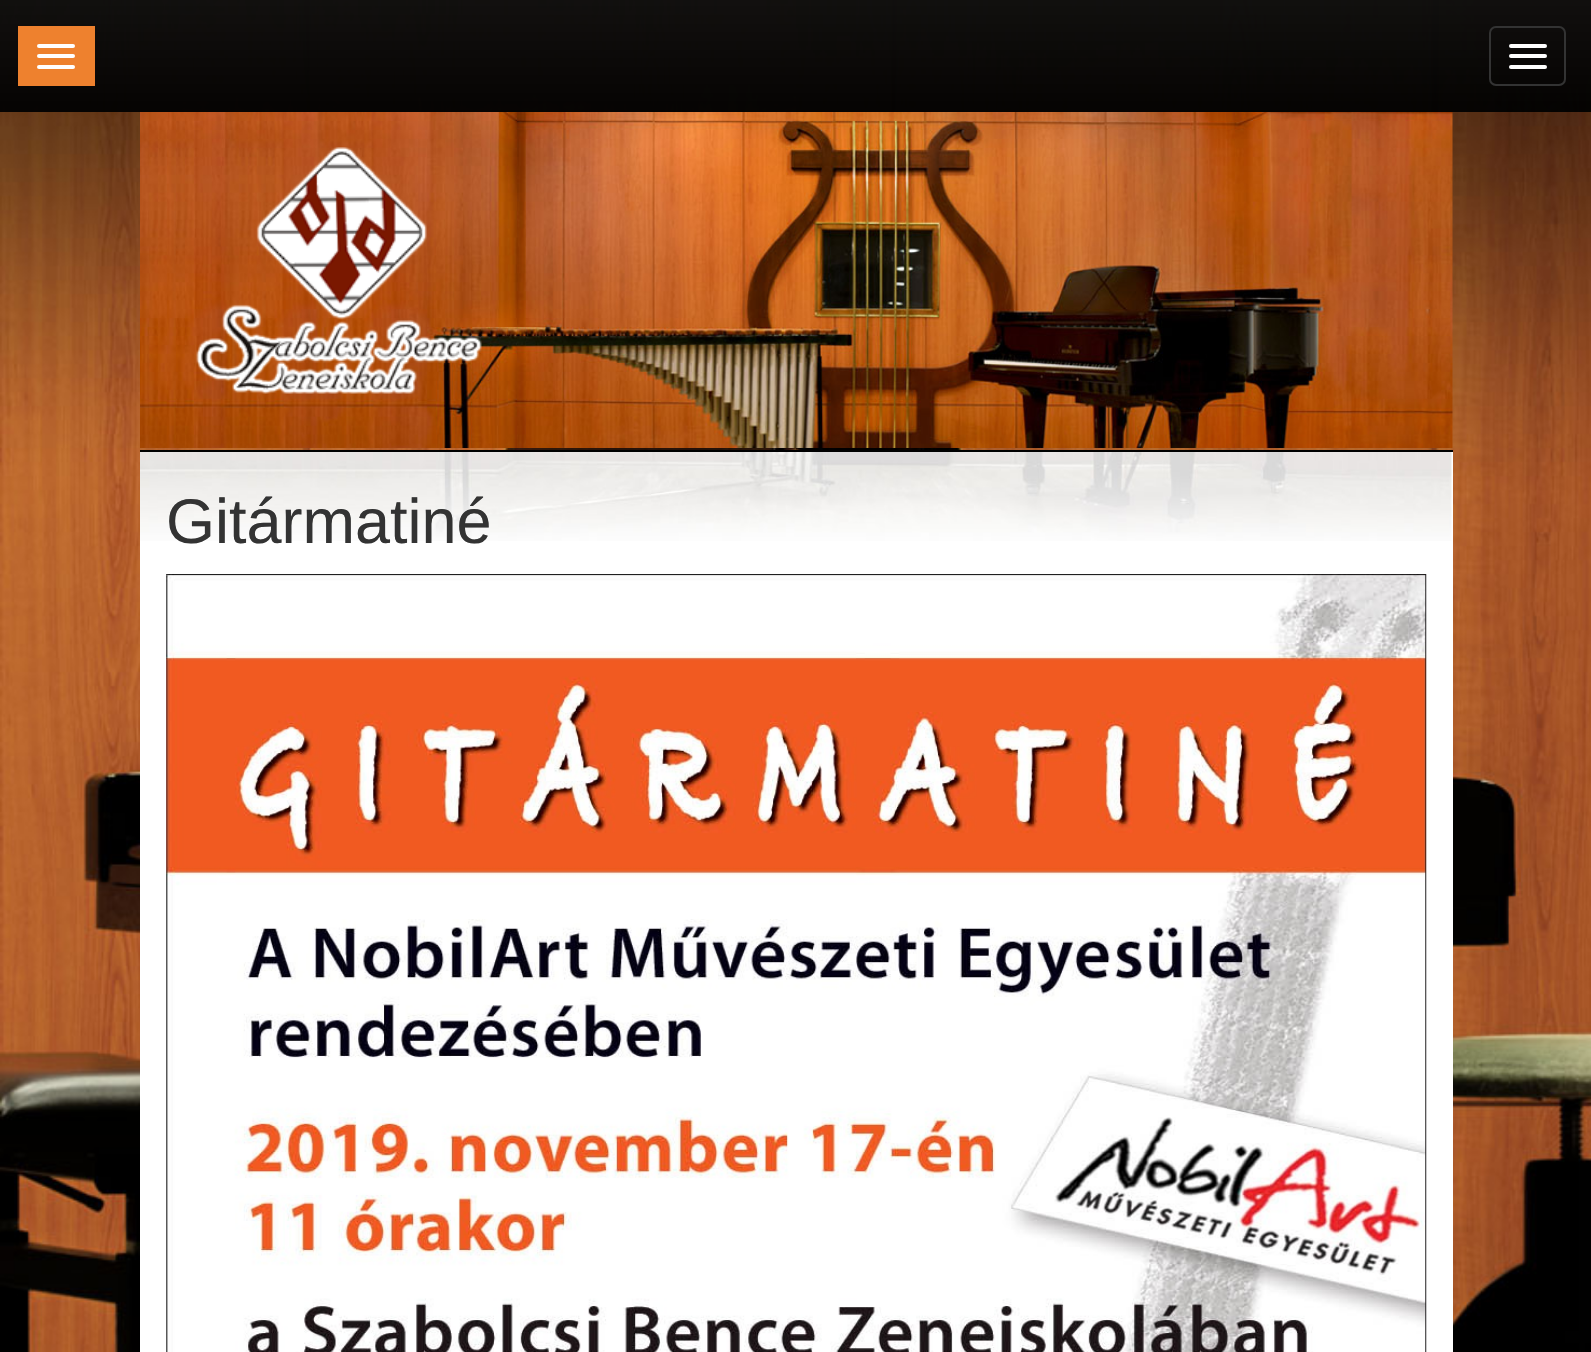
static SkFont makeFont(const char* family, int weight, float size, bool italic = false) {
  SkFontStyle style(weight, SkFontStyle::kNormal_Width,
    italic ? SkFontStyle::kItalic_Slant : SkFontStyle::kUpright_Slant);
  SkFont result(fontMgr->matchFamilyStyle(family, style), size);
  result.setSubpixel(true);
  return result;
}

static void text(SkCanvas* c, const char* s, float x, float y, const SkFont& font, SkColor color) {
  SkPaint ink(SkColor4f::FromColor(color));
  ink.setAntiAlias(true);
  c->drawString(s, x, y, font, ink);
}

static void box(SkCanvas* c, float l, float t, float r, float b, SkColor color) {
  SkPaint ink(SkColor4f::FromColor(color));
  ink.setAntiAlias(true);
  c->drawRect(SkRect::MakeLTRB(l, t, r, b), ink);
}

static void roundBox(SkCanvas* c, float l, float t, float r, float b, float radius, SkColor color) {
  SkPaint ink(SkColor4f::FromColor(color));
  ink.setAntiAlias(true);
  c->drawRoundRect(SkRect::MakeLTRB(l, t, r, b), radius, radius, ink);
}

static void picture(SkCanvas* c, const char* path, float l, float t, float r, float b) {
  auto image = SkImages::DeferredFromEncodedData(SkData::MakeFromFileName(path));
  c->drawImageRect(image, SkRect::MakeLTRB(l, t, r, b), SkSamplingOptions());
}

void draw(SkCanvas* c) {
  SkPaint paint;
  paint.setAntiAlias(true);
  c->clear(0xffffffff);
  picture(c, "img_01.png", 0, 0, 796, 1352);
  picture(c, "img_02.png", 796, 0, 1591, 1352);
  picture(c, "img_03.png", 140, 112, 1453, 448);
  picture(c, "img_04.png", 196, 147, 482, 394);
  box(c, 0, 0, 1591, 112, 0xe6000000);
  {
    const SkColor colors[] = {0x801a1a1a, 0x80000000};
    const float stops[] = {0, 1};
    const SkPoint ends[] = {{796, 0}, {796, 112}};
    paint.setShader(SkGradientShader::MakeLinear(ends, colors, stops, 2, SkTileMode::kClamp));
    paint.setAlpha(255);
  }
  c->drawRect(SkRect::MakeLTRB(0, 0, 1591, 112), paint);
  box(c, 18, 26, 95, 86, 0xffee812e);
  roundBox(c, 37, 44, 75, 48, 2, 0xffffffff);
  roundBox(c, 37, 54, 75, 58, 2, 0xffffffff);
  roundBox(c, 37, 65, 75, 69, 2, 0xffffffff);
  paint.setStyle(SkPaint::kStroke_Style);
  paint.setStrokeWidth(2);
  paint.setShader(nullptr);
  paint.setColor(0xff333333);
  c->drawRoundRect(SkRect::MakeLTRB(1490, 27, 1565, 85), 6, 6, paint);
  roundBox(c, 1509, 44, 1547, 48, 2, 0xffffffff);
  roundBox(c, 1509, 54, 1547, 58, 2, 0xffffffff);
  roundBox(c, 1509, 65, 1547, 69, 2, 0xffffffff);
  box(c, 140, 452, 1453, 1352, 0xffffffff);
  picture(c, "img_05.png", 140, 452, 1452, 541);
  box(c, 140, 450, 1453, 452, 0xff000000);
  SkFont face1 = makeFont("Liberation Sans", 400, 63);
  text(c, "Gitármatiné", 166, 543, face1, 0xff333333);
  picture(c, "img_06.png", 166, 574, 1427, 1352);
}
